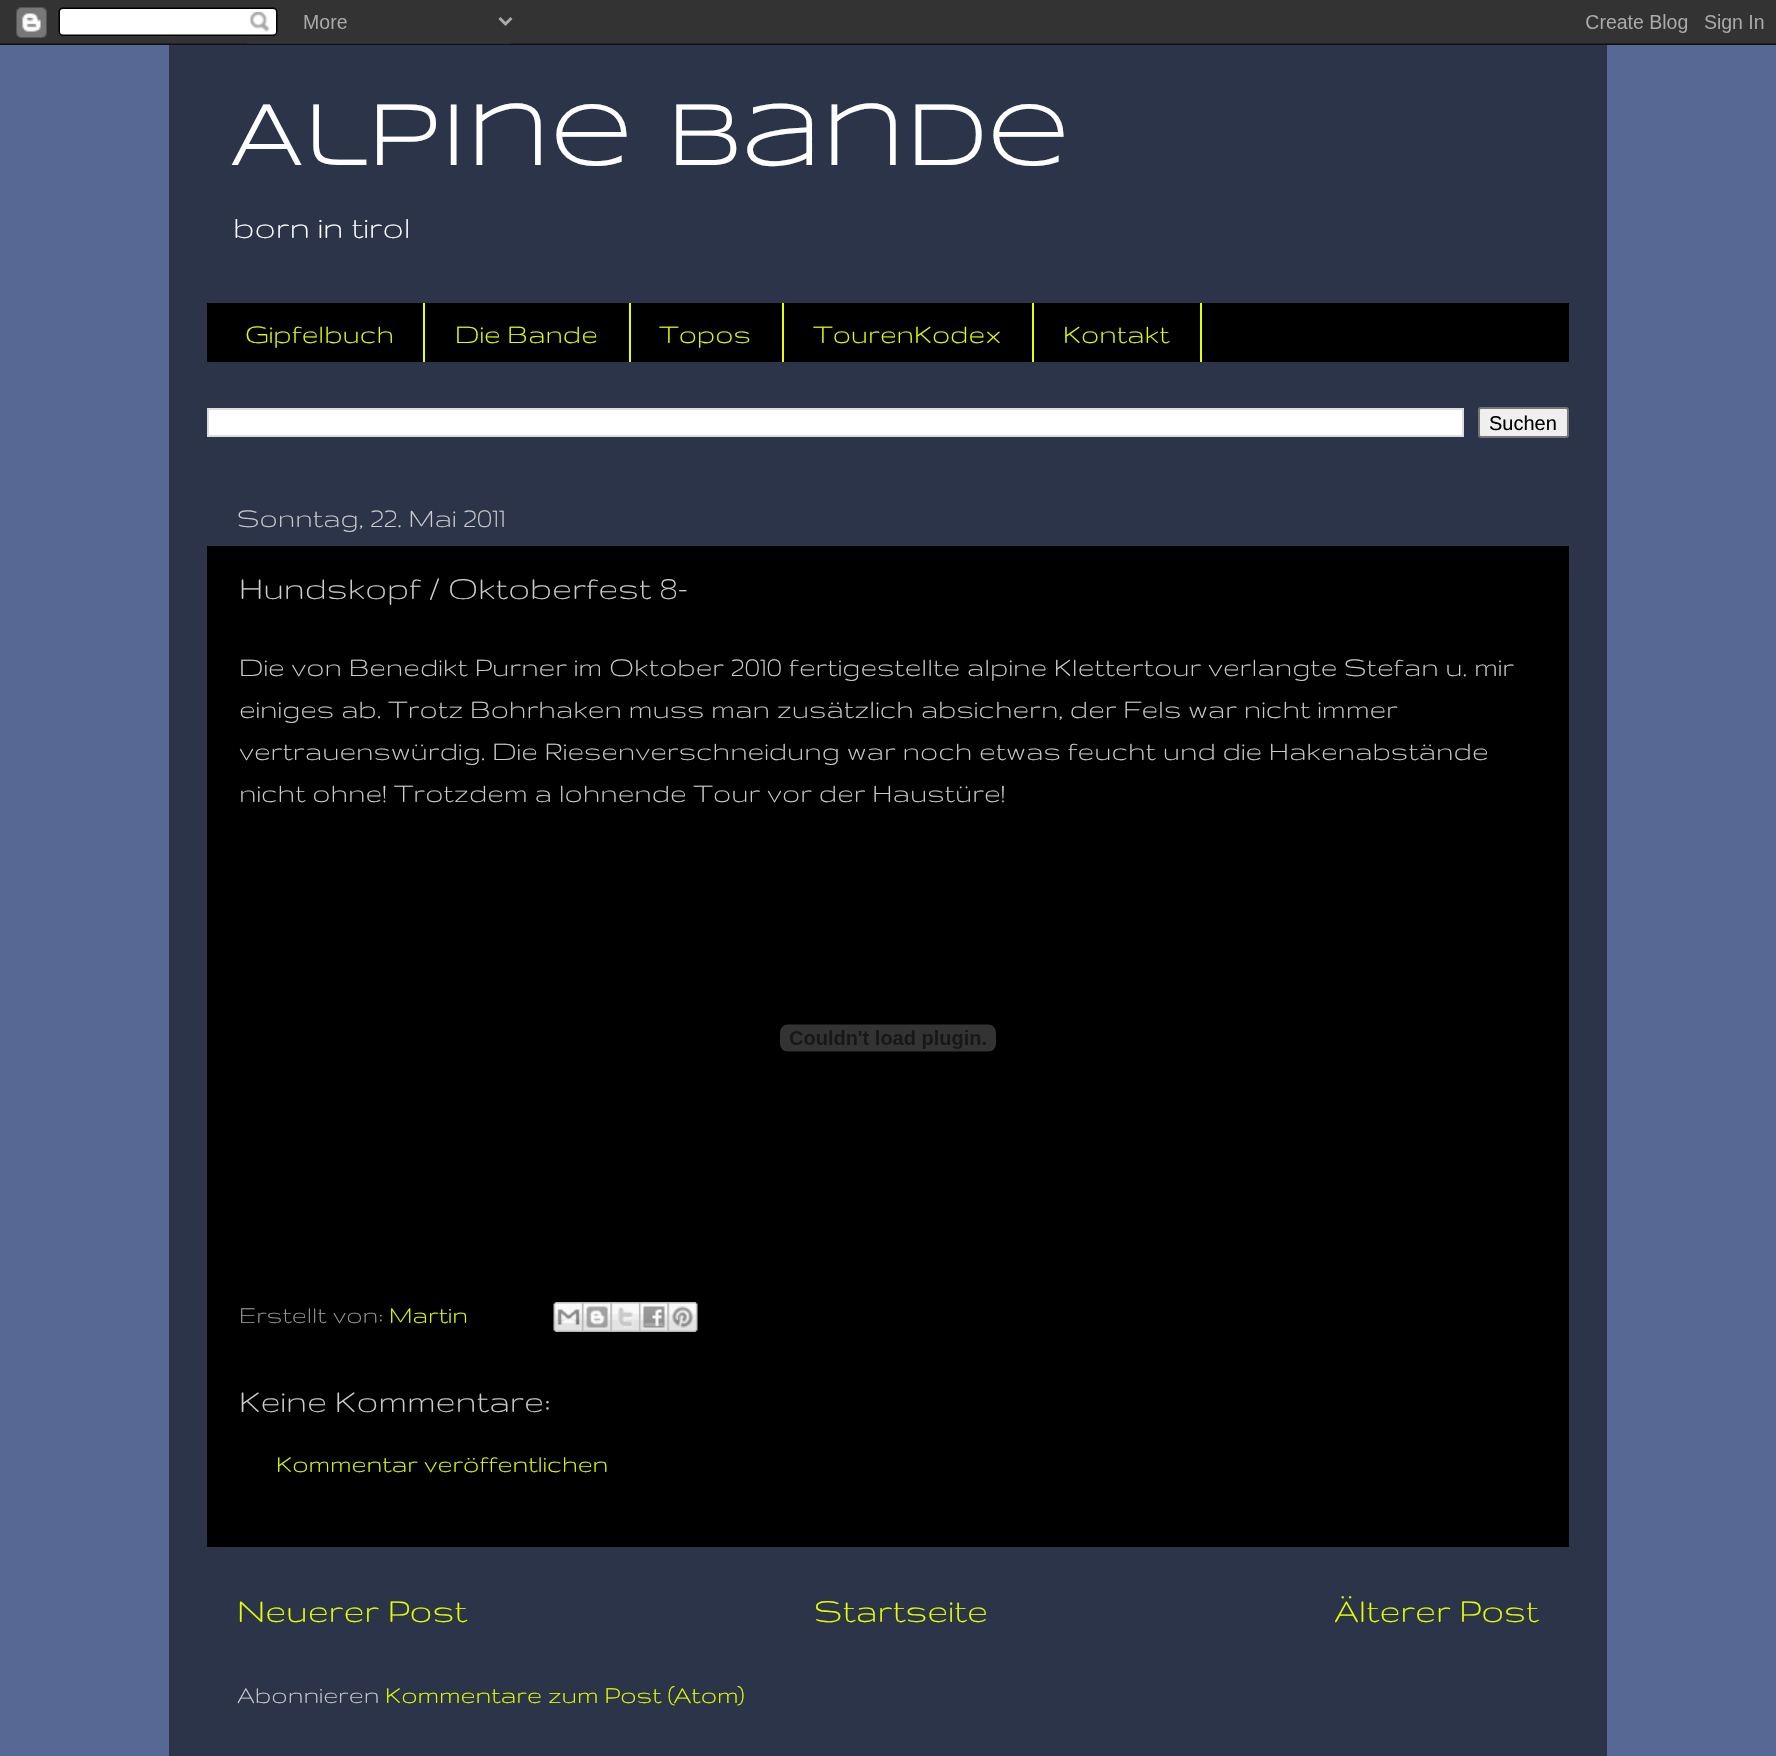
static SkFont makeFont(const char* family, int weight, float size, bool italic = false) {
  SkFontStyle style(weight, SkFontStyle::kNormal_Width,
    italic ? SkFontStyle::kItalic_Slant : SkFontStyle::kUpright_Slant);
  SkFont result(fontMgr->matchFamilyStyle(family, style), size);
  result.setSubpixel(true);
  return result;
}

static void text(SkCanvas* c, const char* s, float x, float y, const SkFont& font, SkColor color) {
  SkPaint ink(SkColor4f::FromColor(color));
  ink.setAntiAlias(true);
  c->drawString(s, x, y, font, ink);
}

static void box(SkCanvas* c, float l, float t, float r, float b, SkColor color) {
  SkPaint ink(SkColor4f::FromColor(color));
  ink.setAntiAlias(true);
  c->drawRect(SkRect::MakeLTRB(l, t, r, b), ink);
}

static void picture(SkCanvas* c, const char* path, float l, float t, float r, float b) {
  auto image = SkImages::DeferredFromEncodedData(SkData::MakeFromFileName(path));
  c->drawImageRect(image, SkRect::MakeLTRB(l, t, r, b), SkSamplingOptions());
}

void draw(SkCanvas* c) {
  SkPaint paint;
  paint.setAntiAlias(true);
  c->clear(0xff576894);
  picture(c, "img_01.png", 0, 0, 1776, 45);
  box(c, 169, 45, 1607, 1756, 0x80000000);
  SkFont face1 = makeFont("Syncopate", 400, 90);
  text(c, "Alpine Bande", 230, 165, face1, 0xffffffff);
  SkFont face2 = makeFont("Gruppo", 400, 35);
  text(c, "born in tirol", 233, 238, face2, 0xffffffff);
  box(c, 207, 303, 1569, 362, 0xff000000);
  box(c, 423, 303, 425, 362, 0xffe5ff00);
  SkFont face3 = makeFont("Gruppo", 400, 30);
  text(c, "Gipfelbuch", 245, 343, face3, 0xffe5ff00);
  box(c, 629, 303, 631, 362, 0xffe5ff00);
  text(c, "Die Bande", 455, 343, face3, 0xffe5ff00);
  box(c, 782, 303, 784, 362, 0xffe5ff00);
  text(c, "Topos", 659, 343, face3, 0xffe5ff00);
  box(c, 1032, 303, 1034, 362, 0xffe5ff00);
  text(c, "TourenKodex", 813, 343, face3, 0xffe5ff00);
  box(c, 1200, 303, 1202, 362, 0xffe5ff00);
  text(c, "Kontakt", 1063, 343, face3, 0xffe5ff00);
  paint.setColor(0xffffffff);
  c->drawRect(SkRect::MakeLTRB(208, 409, 1463, 436), paint);
  paint.setStyle(SkPaint::kStroke_Style);
  paint.setStrokeWidth(2);
  paint.setColor(0xffdddddd);
  c->drawRect(SkRect::MakeLTRB(208, 409, 1463, 436), paint);
  paint.setStyle(SkPaint::kFill_Style);
  paint.setColor(0xffefefef);
  c->drawRoundRect(SkRect::MakeLTRB(1479, 408, 1568, 437), 2, 2, paint);
  paint.setStyle(SkPaint::kStroke_Style);
  paint.setColor(0xff767676);
  c->drawRoundRect(SkRect::MakeLTRB(1479, 408, 1568, 437), 2, 2, paint);
  SkFont face4 = makeFont("Liberation Sans", 400, 20);
  text(c, "Suchen", 1489, 430, face4, 0xff000000);
  text(c, "Sonntag, 22. Mai 2011", 237, 527, face3, 0xffcccccc);
  box(c, 207, 546, 1569, 1547, 0xff000000);
  SkFont face5 = makeFont("Gruppo", 400, 36);
  text(c, "Hundskopf / Oktoberfest 8-", 239, 599, face5, 0xffcccccc);
  text(c, "Die von Benedikt Purner im Oktober 2010 fertigestellte alpine Klettertour verlangte Stefan u. mir", 239, 676, face3, 0xffcccccc);
  text(c, "einiges ab. Trotz Bohrhaken muss man zusätzlich absichern, der Fels war nicht immer", 239, 718, face3, 0xffcccccc);
  text(c, "vertrauenswürdig. Die Riesenverschneidung war noch etwas feucht und die Hakenabstände", 239, 760, face3, 0xffcccccc);
  text(c, "nicht ohne! Trotzdem a lohnende Tour vor der Haustüre!", 239, 802, face3, 0xffcccccc);
  picture(c, "img_02.png", 780, 1024, 996, 1052);
  SkFont face6 = makeFont("Gruppo", 400, 27);
  text(c, "Erstellt von:", 239, 1323, face6, 0xff999999);
  text(c, "Martin", 389, 1323, face6, 0xffe5ff00);
  picture(c, "img_03.png", 553, 1302, 582, 1332);
  picture(c, "img_04.png", 582, 1302, 611, 1332);
  picture(c, "img_05.png", 610, 1302, 639, 1332);
  picture(c, "img_06.png", 639, 1302, 668, 1332);
  picture(c, "img_07.png", 667, 1302, 698, 1332);
  text(c, "Keine Kommentare:", 239, 1412, face5, 0xffcccccc);
  text(c, "Kommentar veröffentlichen", 276, 1472, face6, 0xffe5ff00);
  SkFont face7 = makeFont("Gruppo", 400, 37.75f);
  text(c, "Neuerer Post", 237, 1622, face7, 0xffe5ff00);
  text(c, "Startseite", 814, 1622, face7, 0xffe5ff00);
  text(c, "Älterer Post", 1334, 1622, face7, 0xffe5ff00);
  text(c, "Abonnieren", 237, 1703, face6, 0xffcccccc);
  text(c, "Kommentare zum Post (Atom)", 385, 1703, face6, 0xffe5ff00);
}
